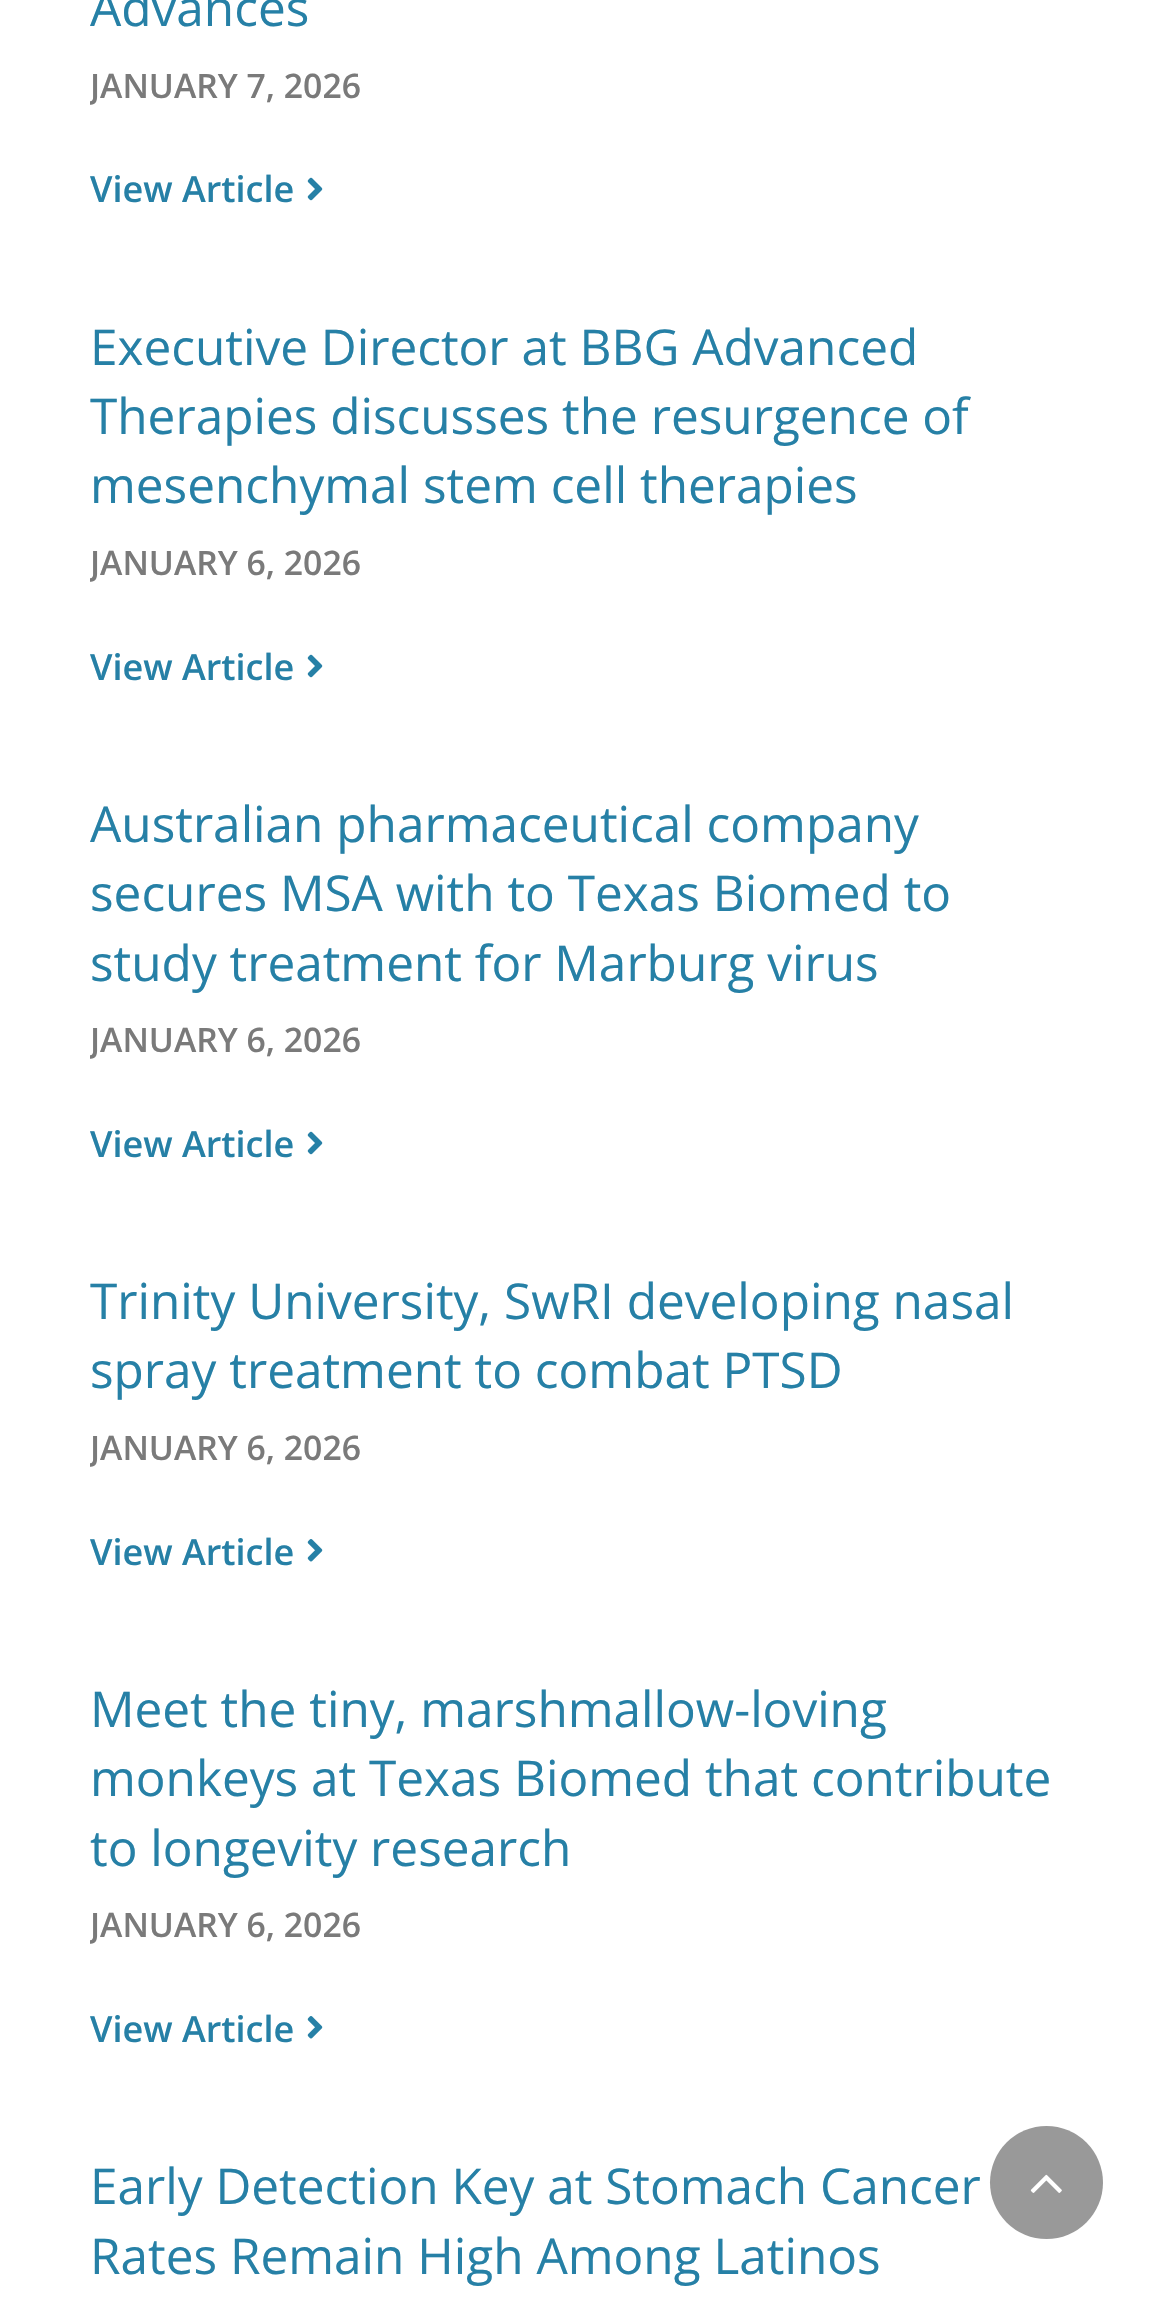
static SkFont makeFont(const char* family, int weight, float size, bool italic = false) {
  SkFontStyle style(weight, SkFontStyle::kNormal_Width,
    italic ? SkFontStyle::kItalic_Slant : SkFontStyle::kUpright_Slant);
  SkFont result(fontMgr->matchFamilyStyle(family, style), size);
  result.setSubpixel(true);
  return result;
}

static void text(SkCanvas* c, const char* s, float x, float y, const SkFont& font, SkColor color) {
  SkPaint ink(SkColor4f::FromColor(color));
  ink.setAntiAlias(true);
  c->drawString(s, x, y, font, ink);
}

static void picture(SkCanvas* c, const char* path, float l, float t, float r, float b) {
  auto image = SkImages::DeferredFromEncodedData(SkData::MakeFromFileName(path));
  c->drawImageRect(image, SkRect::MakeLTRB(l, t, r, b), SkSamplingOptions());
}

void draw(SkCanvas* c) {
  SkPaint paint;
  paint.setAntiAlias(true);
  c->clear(0xffffffff);
  SkFont face1 = makeFont("Open Sans", 400, 49.5f);
  text(c, "Advances", 90, 26, face1, 0xff2680a6);
  c->save();
  c->clipRect(SkRect::MakeLTRB(90, 0, 1080, 221));
  SkFont face2 = makeFont("Open Sans", 600, 33.75f);
  text(c, "JANUARY 7, 2026", 90, 98, face2, 0xff7a7a7a);
  c->restore();
  SkFont face3 = makeFont("Open Sans", 600, 36);
  text(c, "View Article", 90, 202, face3, 0xff2680a6);
  picture(c, "img_01.png", 307, 177, 323, 201);
  text(c, "Executive Director at BBG Advanced", 90, 365, face1, 0xff2680a6);
  text(c, "Therapies discusses the resurgence of", 90, 434, face1, 0xff2680a6);
  text(c, "mesenchymal stem cell therapies", 90, 503, face1, 0xff2680a6);
  c->save();
  c->clipRect(SkRect::MakeLTRB(90, 311, 1080, 698));
  text(c, "JANUARY 6, 2026", 90, 575, face2, 0xff7a7a7a);
  c->restore();
  text(c, "View Article", 90, 680, face3, 0xff2680a6);
  picture(c, "img_01.png", 307, 654, 323, 678);
  text(c, "Australian pharmaceutical company", 90, 842, face1, 0xff2680a6);
  text(c, "secures MSA with to Texas Biomed to", 90, 911, face1, 0xff2680a6);
  text(c, "study treatment for Marburg virus", 90, 981, face1, 0xff2680a6);
  c->save();
  c->clipRect(SkRect::MakeLTRB(90, 788, 1080, 1175));
  text(c, "JANUARY 6, 2026", 90, 1052, face2, 0xff7a7a7a);
  c->restore();
  text(c, "View Article", 90, 1157, face3, 0xff2680a6);
  picture(c, "img_01.png", 307, 1131, 323, 1155);
  text(c, "Trinity University, SwRI developing nasal", 90, 1319, face1, 0xff2680a6);
  text(c, "spray treatment to combat PTSD", 90, 1388, face1, 0xff2680a6);
  c->save();
  c->clipRect(SkRect::MakeLTRB(90, 1265, 1080, 1584));
  text(c, "JANUARY 6, 2026", 90, 1460, face2, 0xff7a7a7a);
  c->restore();
  text(c, "View Article", 90, 1565, face3, 0xff2680a6);
  picture(c, "img_02.png", 307, 1539, 323, 1562);
  text(c, "Meet the tiny, marshmallow-loving", 90, 1727, face1, 0xff2680a6);
  text(c, "monkeys at Texas Biomed that contribute", 90, 1796, face1, 0xff2680a6);
  text(c, "to longevity research", 90, 1866, face1, 0xff2680a6);
  c->save();
  c->clipRect(SkRect::MakeLTRB(90, 1674, 1080, 2061));
  text(c, "JANUARY 6, 2026", 90, 1937, face2, 0xff7a7a7a);
  c->restore();
  text(c, "View Article", 90, 2042, face3, 0xff2680a6);
  picture(c, "img_02.png", 307, 2016, 323, 2039);
  text(c, "Early Detection Key at Stomach Cancer", 90, 2204, face1, 0xff2680a6);
  text(c, "Rates Remain High Among Latinos", 90, 2274, face1, 0xff2680a6);
  paint.setColor(0xff999999);
  c->drawCircle(1046.5f, 2182.5f, 56.5f, paint);
  picture(c, "img_03.png", 1030, 2174, 1062, 2193);
}
